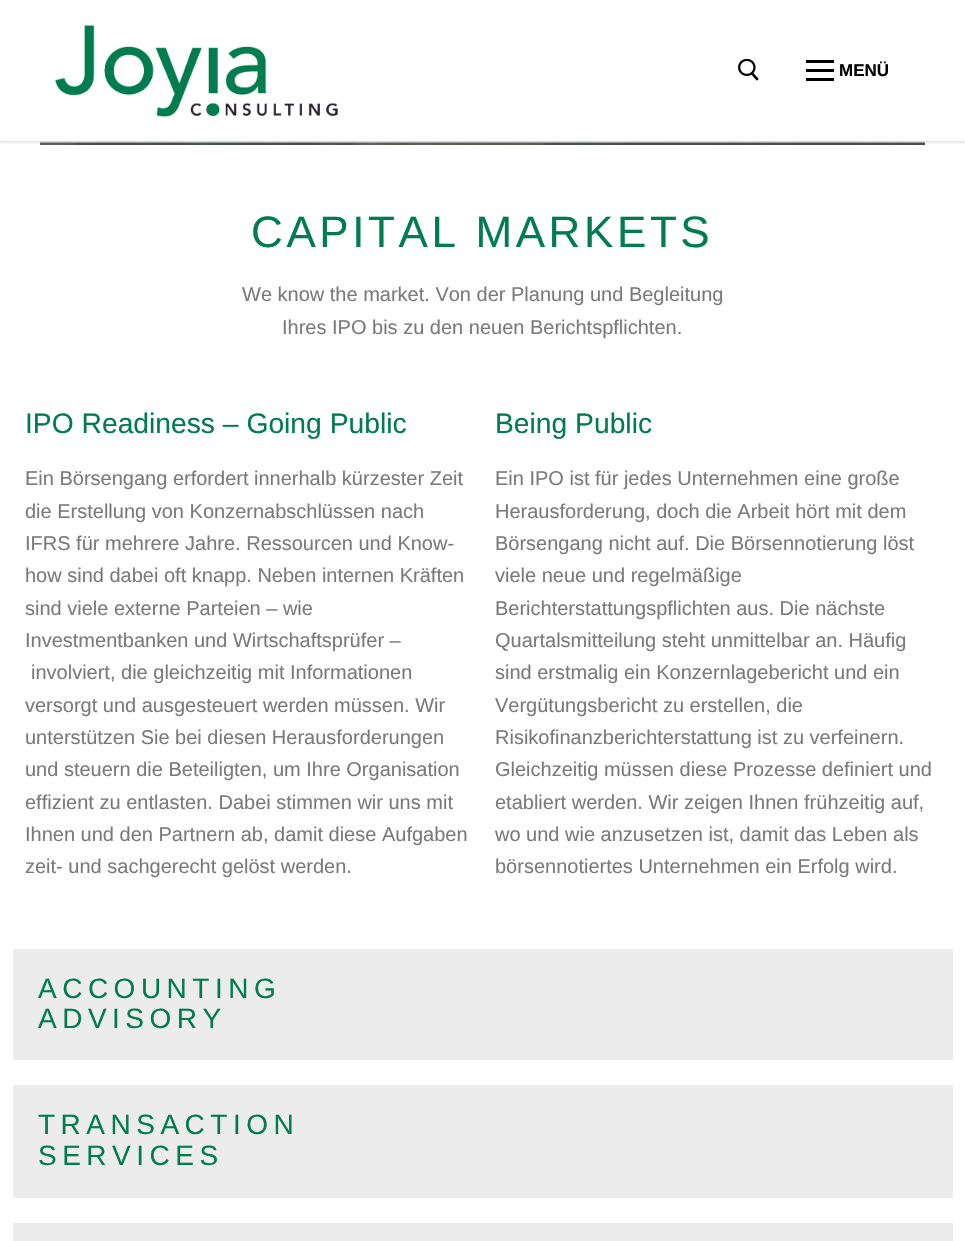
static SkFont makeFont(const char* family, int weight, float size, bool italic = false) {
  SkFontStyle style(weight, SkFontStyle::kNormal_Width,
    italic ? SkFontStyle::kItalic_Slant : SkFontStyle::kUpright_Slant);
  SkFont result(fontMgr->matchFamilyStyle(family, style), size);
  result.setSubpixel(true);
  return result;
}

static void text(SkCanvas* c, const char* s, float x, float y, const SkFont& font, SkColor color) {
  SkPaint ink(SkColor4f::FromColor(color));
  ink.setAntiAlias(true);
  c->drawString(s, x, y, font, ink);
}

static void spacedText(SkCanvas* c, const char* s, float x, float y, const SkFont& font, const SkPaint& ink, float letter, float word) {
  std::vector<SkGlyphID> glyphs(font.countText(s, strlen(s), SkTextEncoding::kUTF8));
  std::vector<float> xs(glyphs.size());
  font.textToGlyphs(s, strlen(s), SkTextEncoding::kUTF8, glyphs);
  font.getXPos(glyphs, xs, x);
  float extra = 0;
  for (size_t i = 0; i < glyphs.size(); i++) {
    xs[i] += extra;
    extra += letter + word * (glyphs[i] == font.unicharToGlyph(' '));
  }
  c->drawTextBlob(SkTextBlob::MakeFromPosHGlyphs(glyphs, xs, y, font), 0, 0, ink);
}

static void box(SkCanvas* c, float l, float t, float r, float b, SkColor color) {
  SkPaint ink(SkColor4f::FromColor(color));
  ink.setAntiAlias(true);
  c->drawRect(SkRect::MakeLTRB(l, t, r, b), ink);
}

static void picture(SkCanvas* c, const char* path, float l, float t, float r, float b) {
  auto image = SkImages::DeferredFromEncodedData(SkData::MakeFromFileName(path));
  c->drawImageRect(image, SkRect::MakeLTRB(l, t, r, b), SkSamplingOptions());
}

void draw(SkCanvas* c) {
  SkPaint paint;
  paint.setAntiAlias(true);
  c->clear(0xffffffff);
  picture(c, "img_03.png", 40, 141, 925, 145);
  paint.setColor(0xffe1e5ea);
  paint.setMaskFilter(SkMaskFilter::MakeBlur(kNormal_SkBlurStyle, 1));
  c->drawRect(SkRect::MakeLTRB(0, 1, 965, 143), paint);
  paint.setMaskFilter(nullptr);
  box(c, 0, 0, 965, 141, 0xffffffff);
  picture(c, "img_01.png", 55, 25, 338, 117);
  picture(c, "img_02.png", 738, 59, 759, 81);
  box(c, 806, 69, 834, 72, 0xff000000);
  box(c, 806, 60, 834, 63, 0xff000000);
  box(c, 806, 78, 834, 81, 0xff000000);
  SkFont face1 = makeFont("Liberation Sans", 700, 17);
  text(c, "MENÜ", 839, 76, face1, 0xff000000);
  SkFont face2 = makeFont("Liberation Sans", 400, 44);
  paint.setColor(0xff007c4e);
  spacedText(c, "CAPITAL MARKETS", 251, 247, face2, paint, 3.6f, 0);
  SkFont face3 = makeFont("Liberation Sans", 400, 20);
  text(c, "We know the market. Von der Planung und Begleitung", 242, 301, face3, 0xff7a7a7a);
  text(c, "Ihres IPO bis zu den neuen Berichtspflichten.", 282, 334, face3, 0xff7a7a7a);
  SkFont face4 = makeFont("Liberation Sans", 400, 28.25f);
  text(c, "IPO Readiness – Going Public", 25, 433, face4, 0xff007c4e);
  text(c, "Ein Börsengang erfordert innerhalb kürzester Zeit", 25, 485, face3, 0xff7a7a7a);
  text(c, "die Erstellung von Konzernabschlüssen nach", 25, 518, face3, 0xff7a7a7a);
  text(c, "IFRS für mehrere Jahre. Ressourcen und Know-", 25, 550, face3, 0xff7a7a7a);
  text(c, "how sind dabei oft knapp. Neben internen Kräften", 25, 582, face3, 0xff7a7a7a);
  text(c, "sind viele externe Parteien – wie", 25, 615, face3, 0xff7a7a7a);
  text(c, "Investmentbanken und Wirtschaftsprüfer –", 25, 647, face3, 0xff7a7a7a);
  text(c, "involviert, die gleichzeitig mit Informationen", 31, 679, face3, 0xff7a7a7a);
  text(c, "versorgt und ausgesteuert werden müssen. Wir", 25, 712, face3, 0xff7a7a7a);
  text(c, "unterstützen Sie bei diesen Herausforderungen", 25, 744, face3, 0xff7a7a7a);
  text(c, "und steuern die Beteiligten, um Ihre Organisation", 25, 776, face3, 0xff7a7a7a);
  text(c, "effizient zu entlasten. Dabei stimmen wir uns mit", 25, 809, face3, 0xff7a7a7a);
  text(c, "Ihnen und den Partnern ab, damit diese Aufgaben", 25, 841, face3, 0xff7a7a7a);
  text(c, "zeit- und sachgerecht gelöst werden.", 25, 873, face3, 0xff7a7a7a);
  text(c, "Being Public", 495, 433, face4, 0xff007c4e);
  text(c, "Ein IPO ist für jedes Unternehmen eine große", 495, 485, face3, 0xff7a7a7a);
  text(c, "Herausforderung, doch die Arbeit hört mit dem", 495, 518, face3, 0xff7a7a7a);
  text(c, "Börsengang nicht auf. Die Börsennotierung löst", 495, 550, face3, 0xff7a7a7a);
  text(c, "viele neue und regelmäßige", 495, 582, face3, 0xff7a7a7a);
  text(c, "Berichterstattungspflichten aus. Die nächste", 495, 615, face3, 0xff7a7a7a);
  text(c, "Quartalsmitteilung steht unmittelbar an. Häufig", 495, 647, face3, 0xff7a7a7a);
  text(c, "sind erstmalig ein Konzernlagebericht und ein", 495, 679, face3, 0xff7a7a7a);
  text(c, "Vergütungsbericht zu erstellen, die", 495, 712, face3, 0xff7a7a7a);
  text(c, "Risikofinanzberichterstattung ist zu verfeinern.", 495, 744, face3, 0xff7a7a7a);
  text(c, "Gleichzeitig müssen diese Prozesse definiert und", 495, 776, face3, 0xff7a7a7a);
  text(c, "etabliert werden. Wir zeigen Ihnen frühzeitig auf,", 495, 809, face3, 0xff7a7a7a);
  text(c, "wo und wie anzusetzen ist, damit das Leben als", 495, 841, face3, 0xff7a7a7a);
  text(c, "börsennotiertes Unternehmen ein Erfolg wird.", 495, 873, face3, 0xff7a7a7a);
  box(c, 13, 949, 953, 1060, 0xffececec);
  SkFont face5 = makeFont("Liberation Sans", 400, 28);
  spacedText(c, "ACCOUNTING", 38, 998, face5, paint, 5.5f, 0);
  spacedText(c, "ADVISORY", 38, 1028, face5, paint, 5.5f, 0);
  box(c, 13, 1085, 953, 1198, 0xffececec);
  spacedText(c, "TRANSACTION", 38, 1134, face5, paint, 5.5f, 0);
  spacedText(c, "SERVICES", 38, 1165, face5, paint, 5.5f, 0);
  box(c, 13, 1223, 953, 1241, 0xffececec);
}
